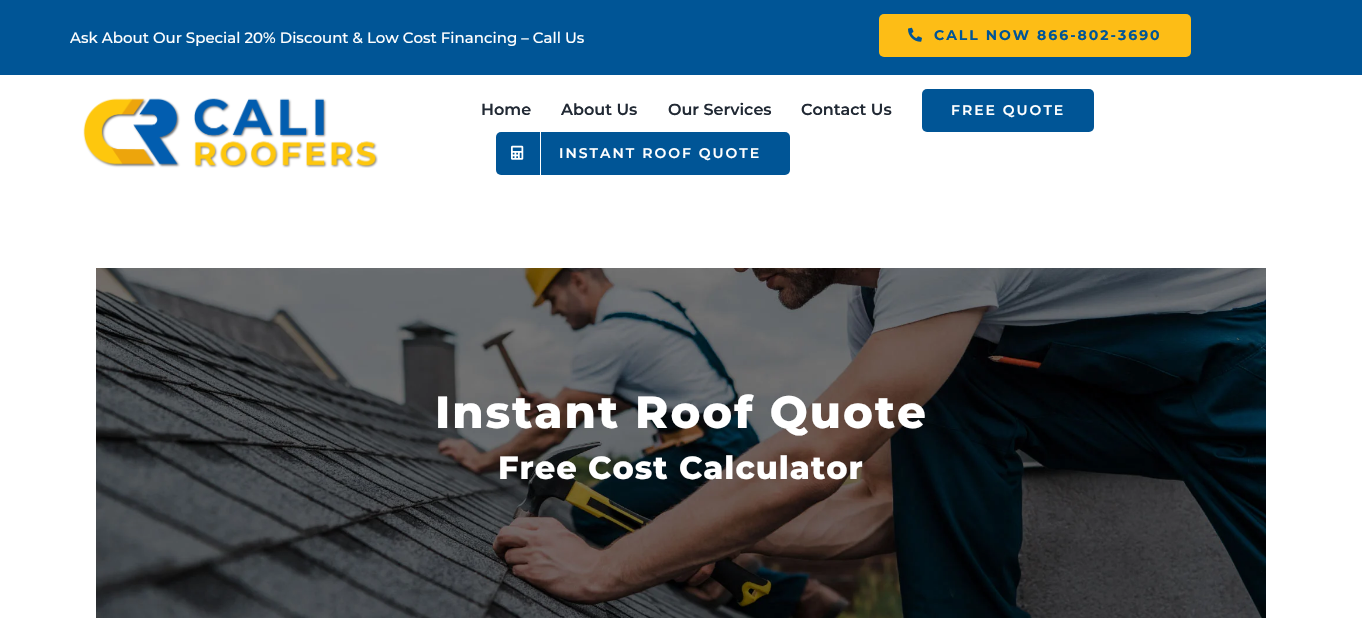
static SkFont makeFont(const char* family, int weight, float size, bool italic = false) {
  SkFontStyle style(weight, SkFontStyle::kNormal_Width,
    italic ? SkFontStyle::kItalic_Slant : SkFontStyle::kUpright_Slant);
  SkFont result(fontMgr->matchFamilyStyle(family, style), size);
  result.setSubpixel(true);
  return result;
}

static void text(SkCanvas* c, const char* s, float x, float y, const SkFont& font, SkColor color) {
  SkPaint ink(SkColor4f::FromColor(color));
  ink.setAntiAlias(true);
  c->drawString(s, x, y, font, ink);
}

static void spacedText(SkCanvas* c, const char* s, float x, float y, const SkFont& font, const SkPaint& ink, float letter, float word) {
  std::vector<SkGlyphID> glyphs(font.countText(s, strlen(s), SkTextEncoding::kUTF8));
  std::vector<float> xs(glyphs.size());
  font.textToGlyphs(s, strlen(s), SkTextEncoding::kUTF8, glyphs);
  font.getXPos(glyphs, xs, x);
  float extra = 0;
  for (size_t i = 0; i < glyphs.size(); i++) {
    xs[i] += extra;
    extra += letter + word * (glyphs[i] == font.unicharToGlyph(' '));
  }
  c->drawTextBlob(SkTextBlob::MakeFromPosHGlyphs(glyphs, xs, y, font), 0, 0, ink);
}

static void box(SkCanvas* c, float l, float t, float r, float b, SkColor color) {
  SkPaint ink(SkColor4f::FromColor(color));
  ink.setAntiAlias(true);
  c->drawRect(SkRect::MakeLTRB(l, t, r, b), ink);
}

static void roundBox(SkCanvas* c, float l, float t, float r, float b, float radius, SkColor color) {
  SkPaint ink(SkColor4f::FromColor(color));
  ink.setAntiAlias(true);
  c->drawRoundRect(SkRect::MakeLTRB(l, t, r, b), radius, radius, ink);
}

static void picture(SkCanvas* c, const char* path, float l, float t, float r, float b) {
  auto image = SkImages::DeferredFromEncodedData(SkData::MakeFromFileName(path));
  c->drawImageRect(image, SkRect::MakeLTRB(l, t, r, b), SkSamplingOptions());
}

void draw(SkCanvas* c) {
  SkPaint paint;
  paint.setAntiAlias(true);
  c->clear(0xffffffff);
  box(c, 0, 0, 1362, 75, 0xff005596);
  SkFont face1 = makeFont("Montserrat", 500, 15);
  text(c, "Ask About Our Special 20% Discount & Low Cost Financing – Call Us", 70, 43, face1, 0xffffffff);
  roundBox(c, 879, 14, 1191, 57, 5, 0xfffdbd16);
  picture(c, "img_01.png", 908, 27, 922, 42);
  SkFont face2 = makeFont("Montserrat", 700, 14);
  paint.setColor(0xff005596);
  spacedText(c, "CALL NOW 866-802-3690", 934, 40, face2, paint, 2, 0);
  picture(c, "img_02.png", 83, 98, 378, 168);
  SkFont face3 = makeFont("Montserrat", 600, 16);
  text(c, "Home", 481, 115, face3, 0xff212934);
  text(c, "About Us", 561, 115, face3, 0xff212934);
  text(c, "Our Services", 668, 115, face3, 0xff212934);
  text(c, "Contact Us", 801, 115, face3, 0xff212934);
  roundBox(c, 922, 89, 1094, 132, 5, 0xff005596);
  SkFont face4 = makeFont("Montserrat", 600, 14);
  paint.setColor(0xffffffff);
  spacedText(c, "FREE QUOTE", 951, 115, face4, paint, 2, 0);
  roundBox(c, 496, 132, 790, 175, 5, 0xff005596);
  box(c, 540, 132, 541, 175, 0xffffffff);
  picture(c, "img_03.png", 511, 145, 524, 160);
  spacedText(c, "INSTANT ROOF QUOTE", 559, 158, face4, paint, 2, 0);
  picture(c, "img_04.png", 96, 268, 1266, 618);
  SkFont face5 = makeFont("Montserrat", 800, 45);
  spacedText(c, "Instant Roof Quote", 435, 428, face5, paint, 2, 0);
  SkFont face6 = makeFont("Montserrat", 800, 32);
  spacedText(c, "Free Cost Calculator", 498, 479, face6, paint, 1, 0);
}
